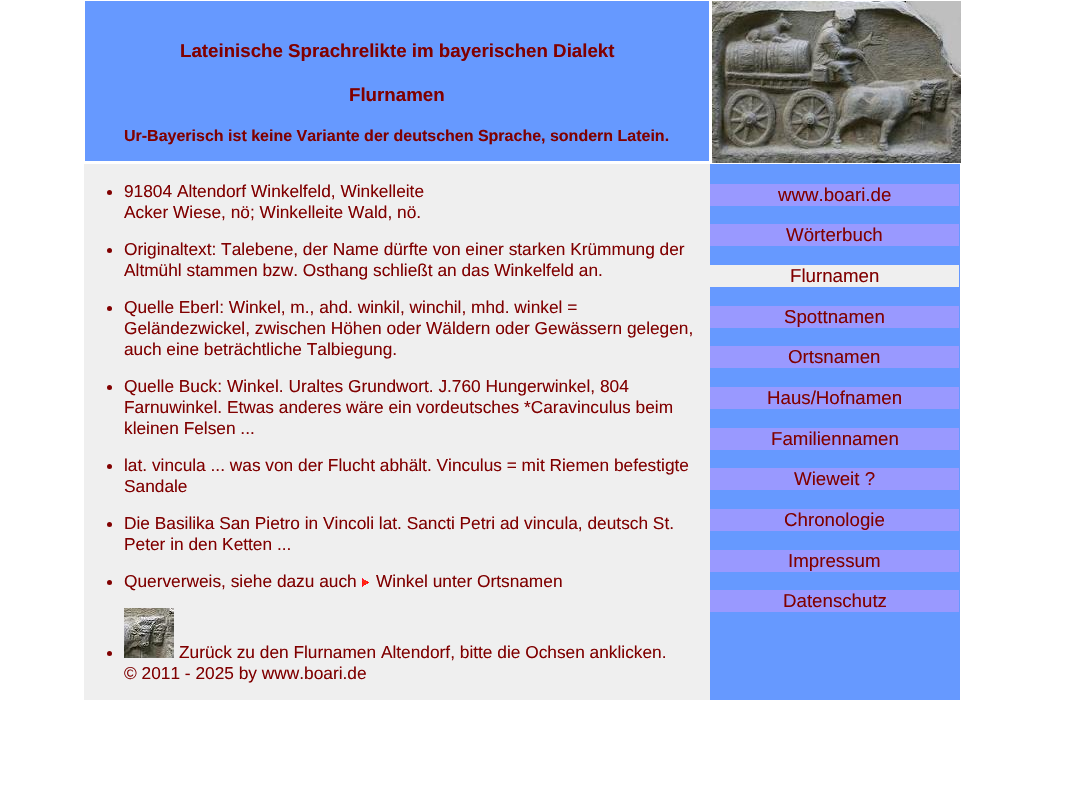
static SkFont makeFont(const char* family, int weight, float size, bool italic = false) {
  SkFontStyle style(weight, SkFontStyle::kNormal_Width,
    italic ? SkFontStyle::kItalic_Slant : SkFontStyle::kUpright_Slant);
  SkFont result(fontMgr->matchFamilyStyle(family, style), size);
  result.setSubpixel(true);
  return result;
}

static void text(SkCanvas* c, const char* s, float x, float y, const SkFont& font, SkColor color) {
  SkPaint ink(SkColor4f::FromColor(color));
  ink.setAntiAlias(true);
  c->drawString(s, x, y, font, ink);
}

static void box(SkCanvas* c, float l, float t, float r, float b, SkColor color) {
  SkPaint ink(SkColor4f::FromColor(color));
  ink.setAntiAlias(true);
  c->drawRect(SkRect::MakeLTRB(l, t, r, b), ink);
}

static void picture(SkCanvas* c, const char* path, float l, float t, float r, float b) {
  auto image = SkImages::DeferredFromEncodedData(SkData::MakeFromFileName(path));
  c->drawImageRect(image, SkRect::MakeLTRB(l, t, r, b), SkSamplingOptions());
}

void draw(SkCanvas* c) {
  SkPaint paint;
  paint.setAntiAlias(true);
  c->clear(0xffffffff);
  box(c, 85, 1, 709, 161, 0xff6699ff);
  SkFont face1 = makeFont("Liberation Sans", 700, 18.7f);
  text(c, "Lateinische Sprachrelikte im bayerischen Dialekt", 180, 57, face1, 0xff800000);
  text(c, "Flurnamen", 349, 101, face1, 0xff800000);
  SkFont face2 = makeFont("Liberation Sans", 700, 16);
  text(c, "Ur-Bayerisch ist keine Variante der deutschen Sprache, sondern Latein.", 124, 141, face2, 0xff800000);
  picture(c, "img_01.png", 712, 1, 961, 163);
  box(c, 84, 164, 710, 700, 0xffefefef);
  paint.setColor(0xff800000);
  c->drawCircle(109.5f, 192.5f, 2.5f, paint);
  SkFont face3 = makeFont("Liberation Sans", 400, 17.3f);
  text(c, "91804 Altendorf Winkelfeld, Winkelleite", 124, 197, face3, 0xff800000);
  text(c, "Acker Wiese, nö; Winkelleite Wald, nö.", 124, 218, face3, 0xff800000);
  c->drawCircle(109.5f, 250.5f, 2.5f, paint);
  text(c, "Originaltext: Talebene, der Name dürfte von einer starken Krümmung der", 124, 255, face3, 0xff800000);
  text(c, "Altmühl stammen bzw. Osthang schließt an das Winkelfeld an.", 124, 276, face3, 0xff800000);
  c->drawCircle(109.5f, 308.5f, 2.5f, paint);
  text(c, "Quelle Eberl: Winkel, m., ahd. winkil, winchil, mhd. winkel =", 124, 313, face3, 0xff800000);
  text(c, "Geländezwickel, zwischen Höhen oder Wäldern oder Gewässern gelegen,", 124, 334, face3, 0xff800000);
  text(c, "auch eine beträchtliche Talbiegung.", 124, 355, face3, 0xff800000);
  c->drawCircle(109.5f, 387.5f, 2.5f, paint);
  text(c, "Quelle Buck: Winkel. Uraltes Grundwort. J.760 Hungerwinkel, 804", 124, 392, face3, 0xff800000);
  text(c, "Farnuwinkel. Etwas anderes wäre ein vordeutsches *Caravinculus beim", 124, 413, face3, 0xff800000);
  text(c, "kleinen Felsen ...", 124, 434, face3, 0xff800000);
  c->drawCircle(109.5f, 466.5f, 2.5f, paint);
  text(c, "lat. vincula ... was von der Flucht abhält. Vinculus = mit Riemen befestigte", 124, 471, face3, 0xff800000);
  text(c, "Sandale", 124, 492, face3, 0xff800000);
  c->drawCircle(109.5f, 524.5f, 2.5f, paint);
  text(c, "Die Basilika San Pietro in Vincoli lat. Sancti Petri ad vincula, deutsch St.", 124, 529, face3, 0xff800000);
  text(c, "Peter in den Ketten ...", 124, 550, face3, 0xff800000);
  c->drawCircle(109.5f, 582.5f, 2.5f, paint);
  text(c, "Querverweis, siehe dazu auch", 124, 587, face3, 0xff800000);
  picture(c, "img_02.png", 362, 578, 369, 587);
  text(c, "Winkel unter Ortsnamen", 376, 587, face3, 0xff800000);
  c->drawCircle(109.5f, 653.5f, 2.5f, paint);
  picture(c, "img_03.png", 124, 608, 174, 658);
  text(c, "Zurück zu den Flurnamen Altendorf, bitte die Ochsen anklicken.", 179, 658, face3, 0xff800000);
  text(c, "© 2011 - 2025 by www.boari.de", 124, 679, face3, 0xff800000);
  box(c, 710, 164, 960, 700, 0xff6699ff);
  box(c, 710, 184, 959, 206, 0xff9999ff);
  SkFont face4 = makeFont("Liberation Sans", 400, 18.7f);
  text(c, "www.boari.de", 778, 201, face4, 0xff800000);
  box(c, 710, 224, 959, 246, 0xff9999ff);
  text(c, "Wörterbuch", 786, 241, face4, 0xff800000);
  box(c, 710, 265, 959, 287, 0xffefefef);
  text(c, "Flurnamen", 790, 282, face4, 0xff800000);
  box(c, 710, 306, 959, 328, 0xff9999ff);
  text(c, "Spottnamen", 784, 323, face4, 0xff800000);
  box(c, 710, 346, 959, 368, 0xff9999ff);
  text(c, "Ortsnamen", 788, 363, face4, 0xff800000);
  box(c, 710, 387, 959, 409, 0xff9999ff);
  text(c, "Haus/Hofnamen", 767, 404, face4, 0xff800000);
  box(c, 710, 428, 959, 450, 0xff9999ff);
  text(c, "Familiennamen", 771, 445, face4, 0xff800000);
  box(c, 710, 468, 959, 490, 0xff9999ff);
  text(c, "Wieweit ?", 794, 485, face4, 0xff800000);
  box(c, 710, 509, 959, 531, 0xff9999ff);
  text(c, "Chronologie", 784, 526, face4, 0xff800000);
  box(c, 710, 550, 959, 572, 0xff9999ff);
  text(c, "Impressum", 788, 567, face4, 0xff800000);
  box(c, 710, 590, 959, 612, 0xff9999ff);
  text(c, "Datenschutz", 783, 607, face4, 0xff800000);
}
